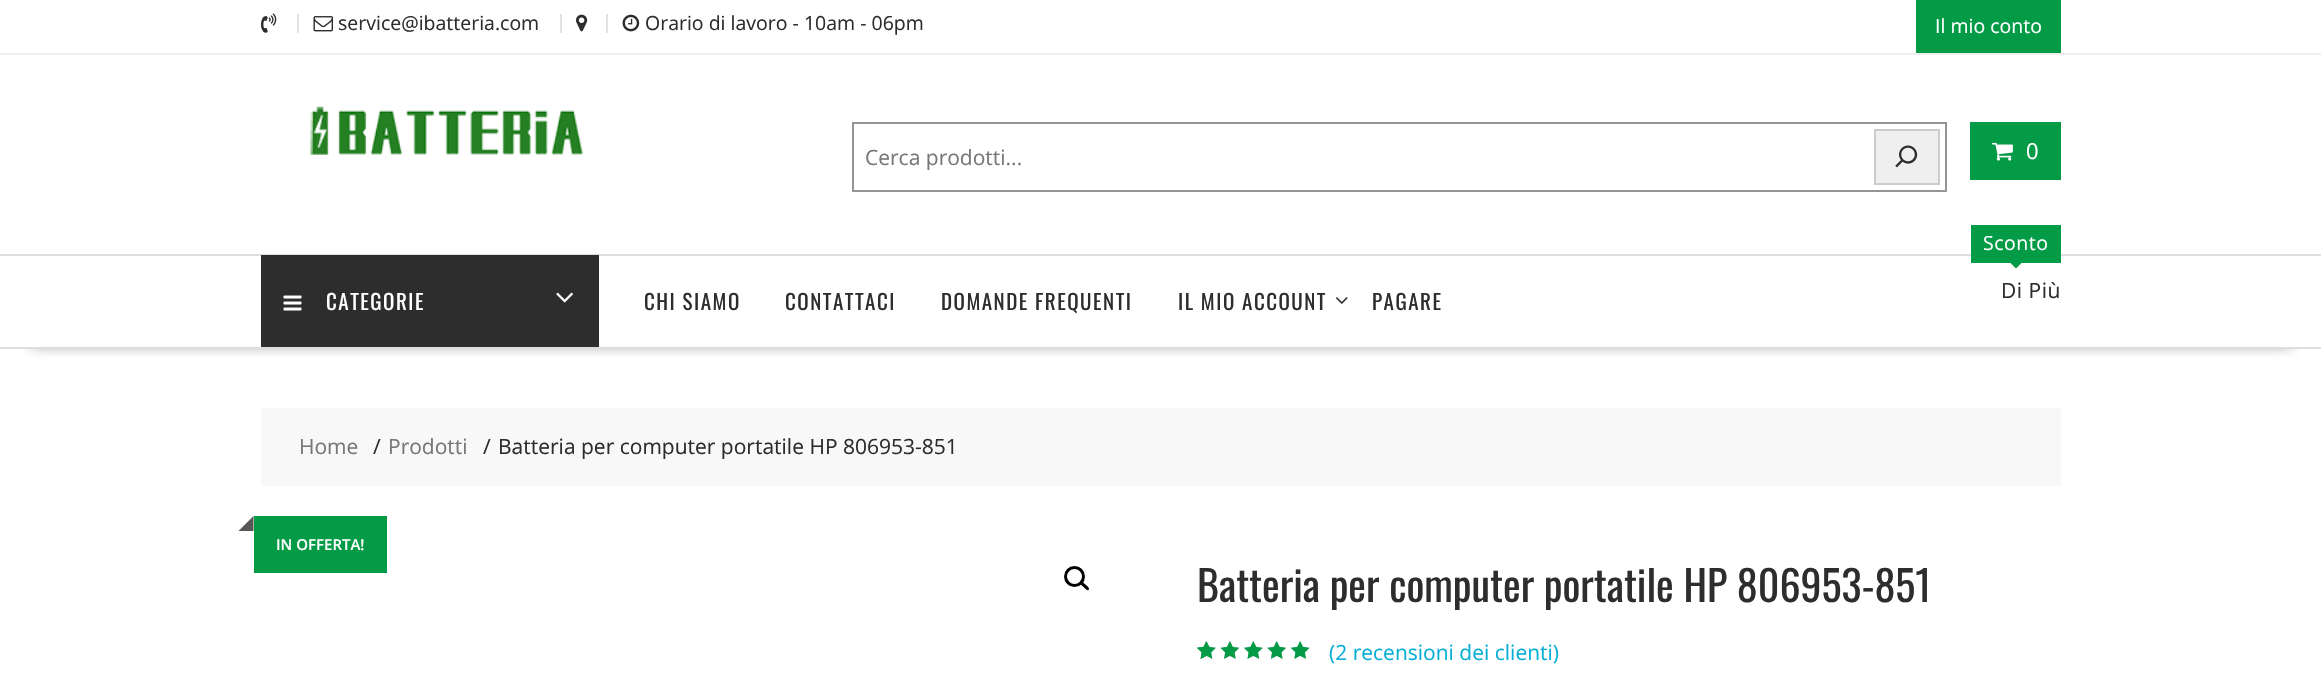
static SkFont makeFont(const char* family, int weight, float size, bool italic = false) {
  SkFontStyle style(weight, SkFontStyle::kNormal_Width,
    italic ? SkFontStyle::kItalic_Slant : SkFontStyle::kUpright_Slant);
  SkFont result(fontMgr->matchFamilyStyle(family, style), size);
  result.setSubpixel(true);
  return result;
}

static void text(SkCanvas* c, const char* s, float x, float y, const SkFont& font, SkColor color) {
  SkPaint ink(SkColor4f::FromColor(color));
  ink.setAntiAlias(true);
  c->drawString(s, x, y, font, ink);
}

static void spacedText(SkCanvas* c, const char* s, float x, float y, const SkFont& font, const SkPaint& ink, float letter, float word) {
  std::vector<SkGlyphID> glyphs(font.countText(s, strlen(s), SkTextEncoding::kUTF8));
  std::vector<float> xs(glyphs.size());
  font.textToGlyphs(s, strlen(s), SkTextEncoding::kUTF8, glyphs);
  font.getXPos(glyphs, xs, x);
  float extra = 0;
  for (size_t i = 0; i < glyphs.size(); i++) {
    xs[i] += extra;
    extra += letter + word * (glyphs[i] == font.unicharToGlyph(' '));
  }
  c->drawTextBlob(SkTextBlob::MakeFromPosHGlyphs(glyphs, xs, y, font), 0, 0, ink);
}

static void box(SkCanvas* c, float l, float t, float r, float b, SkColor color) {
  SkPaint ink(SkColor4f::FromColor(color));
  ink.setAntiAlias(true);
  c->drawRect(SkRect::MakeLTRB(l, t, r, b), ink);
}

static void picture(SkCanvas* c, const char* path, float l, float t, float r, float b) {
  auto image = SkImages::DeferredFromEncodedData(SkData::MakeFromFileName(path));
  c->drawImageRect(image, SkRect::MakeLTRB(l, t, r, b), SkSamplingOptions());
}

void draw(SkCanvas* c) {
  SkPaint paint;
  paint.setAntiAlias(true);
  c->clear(0xffffffff);
  box(c, 0, 53, 2321, 55, 0xffeeeeee);
  picture(c, "img_01.png", 261, 13, 277, 33);
  box(c, 297, 14, 299, 33, 0xffe2e2e4);
  picture(c, "img_02.png", 313, 16, 333, 32);
  SkFont face1 = makeFont("Open Sans", 400, 19.5f);
  text(c, "service@ibatteria.com", 338, 30, face1, 0xff2d2d2d);
  box(c, 560, 14, 562, 33, 0xffe2e2e4);
  picture(c, "img_03.png", 576, 14, 588, 32);
  box(c, 606, 14, 608, 33, 0xffe2e2e4);
  picture(c, "img_04.png", 622, 14, 640, 32);
  text(c, "Orario di lavoro - 10am - 06pm", 645, 30, face1, 0xff2d2d2d);
  box(c, 1916, 0, 2061, 53, 0xff039b45);
  text(c, "Il mio conto", 1935, 33, face1, 0xffffffff);
  picture(c, "img_05.png", 310, 106, 584, 155);
  paint.setStyle(SkPaint::kStroke_Style);
  paint.setStrokeWidth(2);
  paint.setColor(0xff949494);
  c->drawRect(SkRect::MakeLTRB(853, 123, 1946, 191), paint);
  SkFont face2 = makeFont("Open Sans", 400, 21);
  text(c, "Cerca prodotti...", 865, 165, face2, 0xff777777);
  paint.setStyle(SkPaint::kFill_Style);
  paint.setColor(0xffefefef);
  c->drawRect(SkRect::MakeLTRB(1875, 130, 1939, 184), paint);
  paint.setStyle(SkPaint::kStroke_Style);
  paint.setColor(0xffcccccc);
  c->drawRect(SkRect::MakeLTRB(1875, 130, 1939, 184), paint);
  picture(c, "img_06.png", 1895, 145, 1918, 168);
  box(c, 1970, 122, 2061, 180, 0xff039b45);
  picture(c, "img_07.png", 1992, 142, 2013, 161);
  SkFont face3 = makeFont("Open Sans", 400, 22);
  text(c, "0", 2026, 159, face3, 0xffffffff);
  c->save();
  c->clipRect(SkRect::MakeLTRB(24, 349, 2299, 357));
  paint.setStyle(SkPaint::kFill_Style);
  paint.setColor(0xbf000000);
  paint.setMaskFilter(SkMaskFilter::MakeBlur(kNormal_SkBlurStyle, 8));
  c->drawRect(SkRect::MakeLTRB(32, 311, 2291, 342), paint);
  paint.setMaskFilter(nullptr);
  c->restore();
  box(c, 0, 254, 2321, 256, 0xffdedede);
  box(c, 0, 347, 2321, 349, 0xffdedede);
  box(c, 261, 255, 599, 347, 0xff2d2d2d);
  picture(c, "img_08.png", 283, 295, 302, 311);
  SkFont face4 = makeFont("Oswald", 400, 21);
  paint.setColor(0xffffffff);
  spacedText(c, "CATEGORIE", 326, 310, face4, paint, 1.5f, 0);
  picture(c, "img_09.png", 556, 292, 573, 303);
  box(c, 1971, 225, 2061, 263, 0xff039b45);
  spacedText(c, "Sconto", 1983, 250, face1, paint, 0.5f, 0);
  paint.setColor(0xff039b45);
  c->drawPath(SkPathBuilder().moveTo(2008.5f, 261).lineTo(2023.5f, 261).lineTo(2016, 268.5f).close().detach(), paint);
  paint.setColor(0xff2d2d2d);
  spacedText(c, "Di Più", 2001, 298, face2, paint, 0.5f, 0);
  spacedText(c, "CHI SIAMO", 644, 310, face4, paint, 1.5f, 0);
  spacedText(c, "CONTATTACI", 785, 310, face4, paint, 1.5f, 0);
  spacedText(c, "DOMANDE FREQUENTI", 941, 310, face4, paint, 1.5f, 0);
  spacedText(c, "IL MIO ACCOUNT", 1178, 310, face4, paint, 1.5f, 0);
  picture(c, "img_10.png", 1336, 297, 1348, 304);
  spacedText(c, "PAGARE", 1372, 310, face4, paint, 1.5f, 0);
  box(c, 261, 408, 2061, 486, 0xfff8f8f8);
  text(c, "Home", 299, 454, face2, 0xff777777);
  text(c, "/", 373, 454, face2, 0xff2d2d2d);
  text(c, "Prodotti", 388, 454, face2, 0xff777777);
  text(c, "/", 483, 454, face2, 0xff2d2d2d);
  text(c, "Batteria per computer portatile HP 806953-851", 498, 454, face2, 0xff2d2d2d);
  box(c, 254, 516, 387, 573, 0xff039b45);
  paint.setColor(0xff565955);
  c->drawPath(SkPathBuilder().moveTo(253.5f, 516).lineTo(253.5f, 531).lineTo(238.5f, 531).close().detach(), paint);
  SkFont face5 = makeFont("Open Sans", 600, 15);
  text(c, "IN OFFERTA!", 276, 550, face5, 0xffffffff);
  paint.setStyle(SkPaint::kStroke_Style);
  paint.setStrokeWidth(3);
  paint.setColor(0xff000000);
  c->drawCircle(1074.5f, 576.5f, 9, paint);
  paint.setStyle(SkPaint::kFill_Style);
  c->drawPath(SkPathBuilder().moveTo(1080.5f, 581.5f).cubicTo(1082, 580, 1084.5f, 584, 1085.5f, 584.5f).cubicTo(1086.5f, 585.5f, 1090.5f, 588.5f, 1088.5f, 590).cubicTo(1087, 591.5f, 1084.5f, 587.5f, 1083.5f, 587).cubicTo(1082.5f, 586, 1078.5f, 583, 1080.5f, 581.5f).close().detach(), paint);
  SkFont face6 = makeFont("Oswald", 400, 42);
  text(c, "Batteria per computer portatile HP 806953-851", 1197, 602, face6, 0xff2d2d2d);
  picture(c, "img_11.png", 1197, 641, 1310, 659);
  picture(c, "img_12.png", 1197, 641, 1310, 659);
  picture(c, "img_13.png", 1197, 642, 1206, 659);
  text(c, "(2 recensioni dei clienti)", 1329, 660, face2, 0xff07afd4);
}
